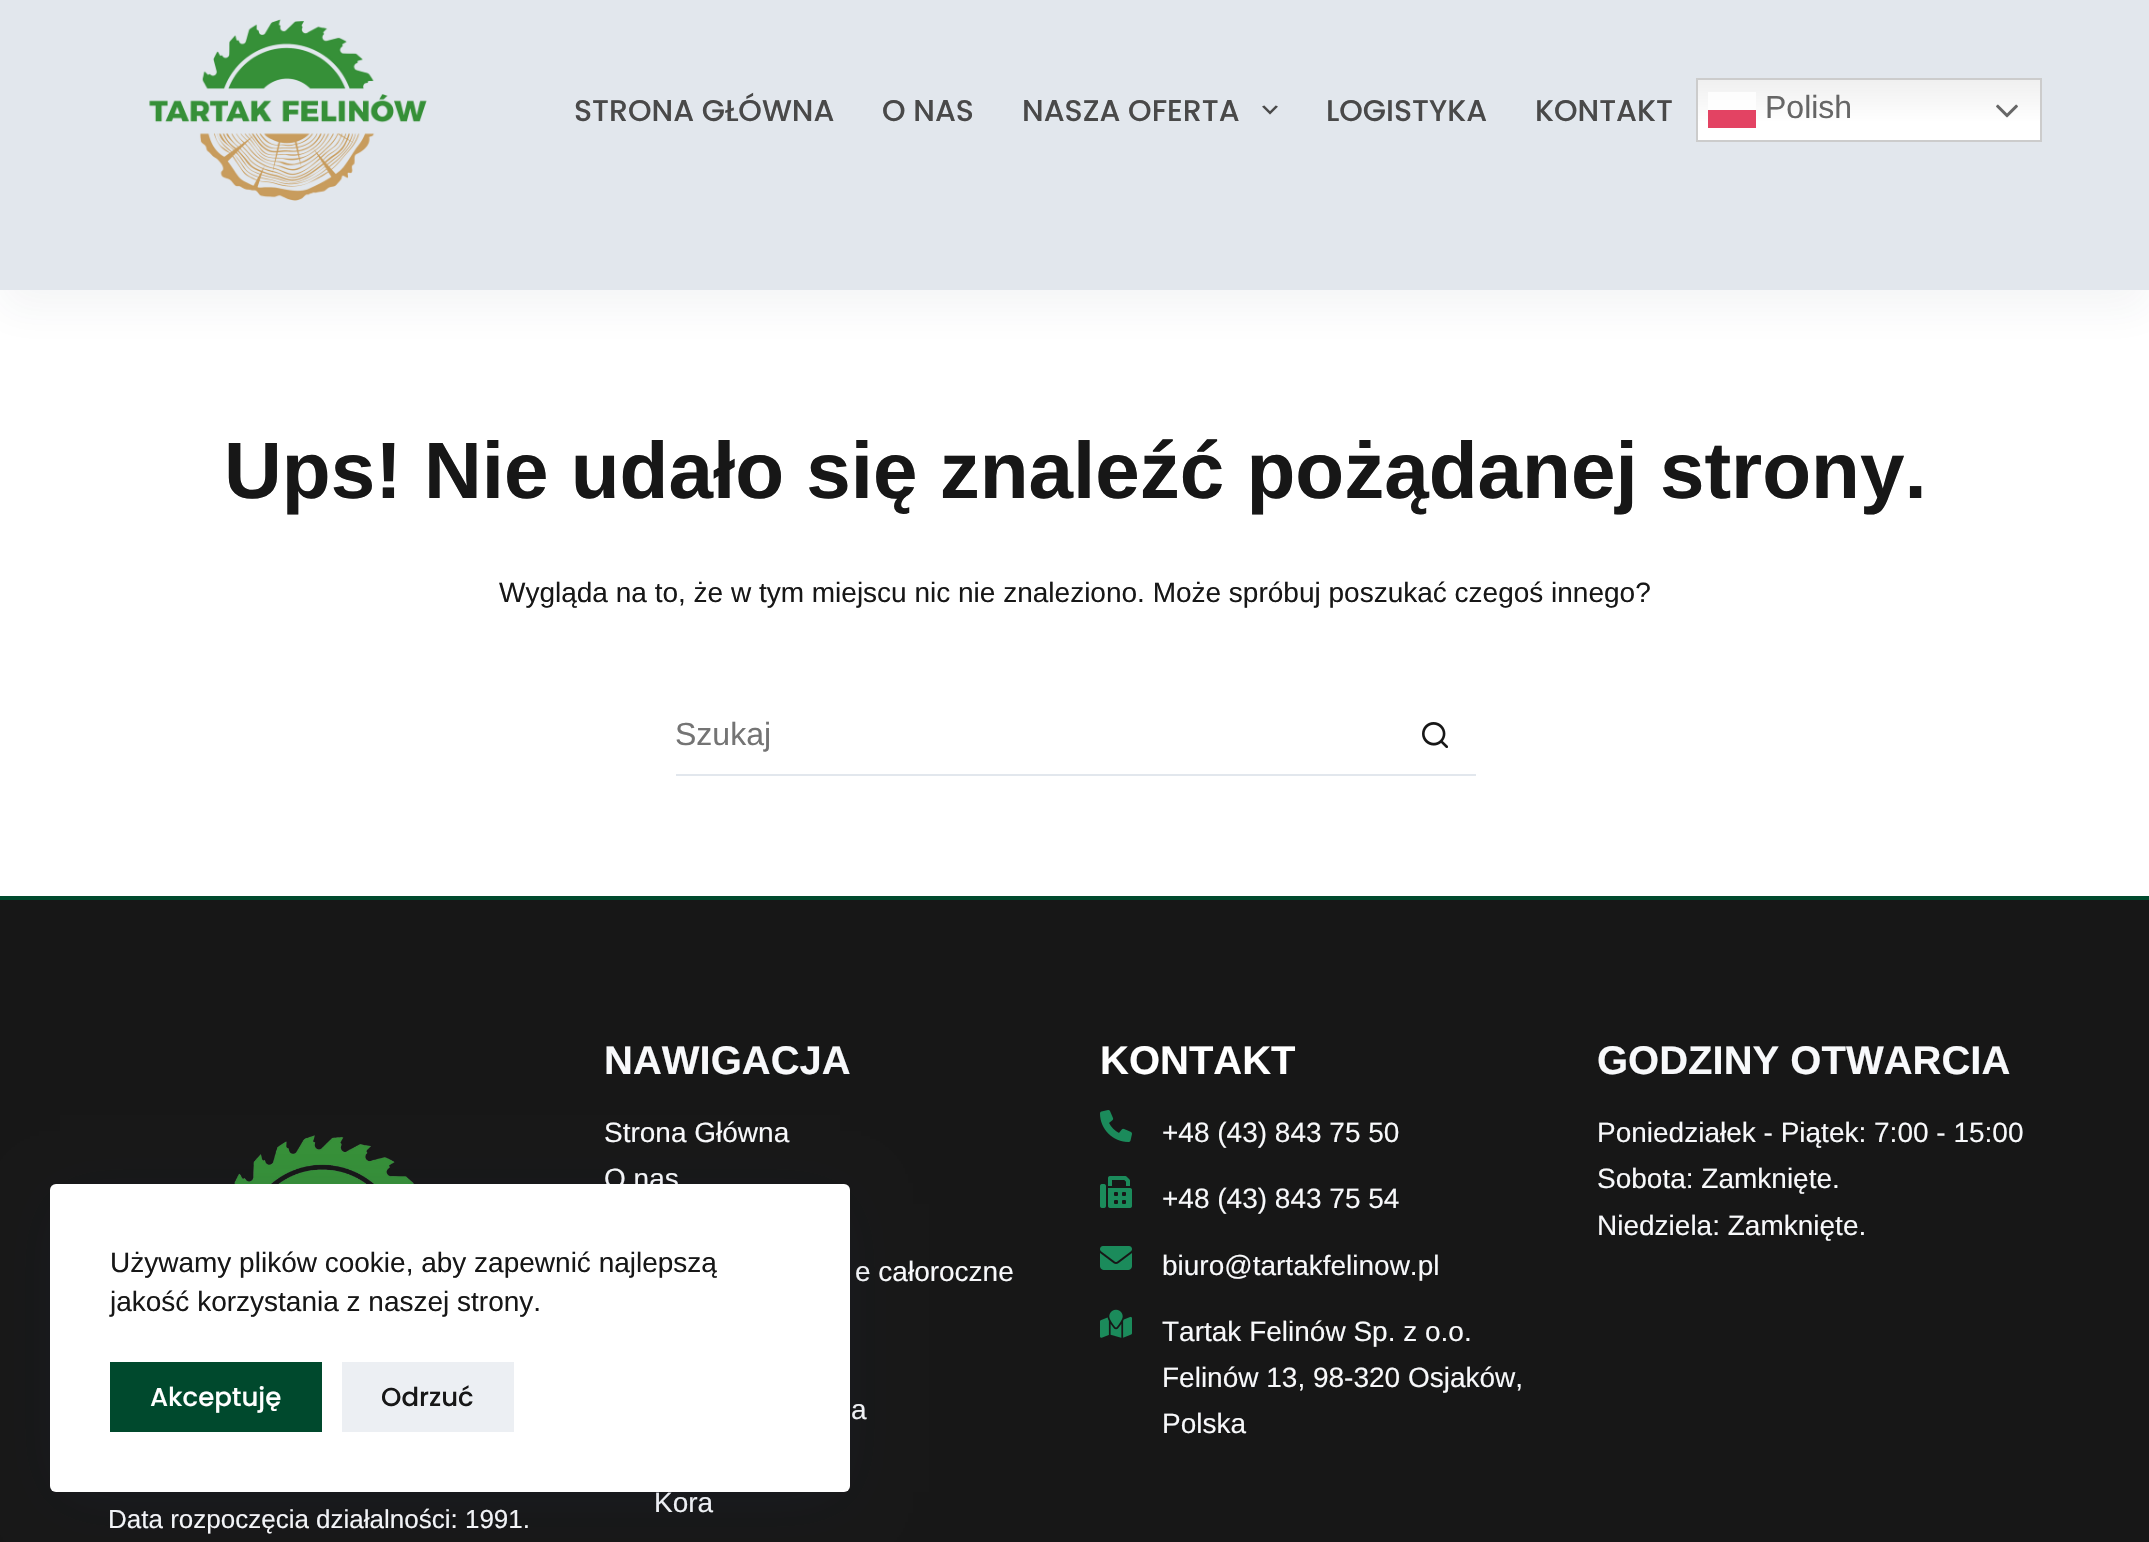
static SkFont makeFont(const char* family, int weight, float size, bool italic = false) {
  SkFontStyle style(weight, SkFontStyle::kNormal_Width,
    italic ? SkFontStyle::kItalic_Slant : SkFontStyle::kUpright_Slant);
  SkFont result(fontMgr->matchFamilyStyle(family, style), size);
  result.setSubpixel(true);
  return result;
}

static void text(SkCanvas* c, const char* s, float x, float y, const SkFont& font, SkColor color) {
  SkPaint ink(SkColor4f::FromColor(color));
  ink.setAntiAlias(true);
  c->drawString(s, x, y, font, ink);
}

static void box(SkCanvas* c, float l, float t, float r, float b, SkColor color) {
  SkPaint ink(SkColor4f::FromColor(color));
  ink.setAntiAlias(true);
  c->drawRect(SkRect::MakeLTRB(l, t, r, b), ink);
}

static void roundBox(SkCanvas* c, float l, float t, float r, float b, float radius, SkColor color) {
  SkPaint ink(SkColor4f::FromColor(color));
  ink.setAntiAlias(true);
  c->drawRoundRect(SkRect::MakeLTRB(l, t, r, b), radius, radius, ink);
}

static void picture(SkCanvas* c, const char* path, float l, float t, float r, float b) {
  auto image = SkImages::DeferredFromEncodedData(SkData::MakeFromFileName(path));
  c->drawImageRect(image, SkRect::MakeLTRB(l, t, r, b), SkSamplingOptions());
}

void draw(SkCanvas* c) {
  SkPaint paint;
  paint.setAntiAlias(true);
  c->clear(0xffffffff);
  paint.setColor(0x0d2c3e50);
  paint.setMaskFilter(SkMaskFilter::MakeBlur(kNormal_SkBlurStyle, 20));
  c->drawRect(SkRect::MakeLTRB(0, -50, 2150, 310), paint);
  paint.setMaskFilter(nullptr);
  box(c, 0, 0, 2149, 290, 0xffe2e7ed);
  picture(c, "img_01.png", 149, 19, 427, 201);
  SkFont face1 = makeFont("Poppins", 500, 30);
  text(c, "STRONA GŁÓWNA", 574, 121, face1, 0xff494949);
  text(c, "O NAS", 882, 121, face1, 0xff494949);
  text(c, "NASZA OFERTA", 1022, 121, face1, 0xff494949);
  picture(c, "img_02.png", 1262, 105, 1278, 115);
  text(c, "LOGISTYKA", 1326, 121, face1, 0xff494949);
  text(c, "KONTAKT", 1535, 121, face1, 0xff494949);
  {
    const SkColor colors[] = {0xffefefef, 0xffffffff};
    const float stops[] = {0, 0.7f};
    const SkPoint ends[] = {{1869, 78}, {1869, 142}};
    paint.setShader(SkGradientShader::MakeLinear(ends, colors, stops, 2, SkTileMode::kClamp));
    paint.setAlpha(255);
  }
  c->drawRect(SkRect::MakeLTRB(1698, 80, 2040, 140), paint);
  {
    const SkColor colors[] = {0xfffcfcfc, 0xffffffff};
    const float stops[] = {0, 0.7f};
    const SkPoint ends[] = {{1869, 78}, {1869, 142}};
    paint.setShader(SkGradientShader::MakeLinear(ends, colors, stops, 2, SkTileMode::kClamp));
    paint.setAlpha(255);
  }
  c->drawRect(SkRect::MakeLTRB(1708, 92, 1756, 110), paint);
  paint.setStyle(SkPaint::kStroke_Style);
  paint.setStrokeWidth(2);
  paint.setShader(nullptr);
  paint.setColor(0xffcccccc);
  c->drawRect(SkRect::MakeLTRB(1697, 79, 2041, 141), paint);
  box(c, 1708, 110, 1756, 128, 0xffe34363);
  SkFont face2 = makeFont("Liberation Sans", 400, 32);
  text(c, "Polish", 1765, 118, face2, 0xff666666);
  picture(c, "img_03.png", 1996, 104, 2018, 118);
  SkFont face3 = makeFont("Liberation Sans", 700, 80);
  text(c, "Ups! Nie udało się znaleźć pożądanej strony.", 224, 498, face3, 0xff171717);
  SkFont face4 = makeFont("Liberation Sans", 400, 28);
  text(c, "Wygląda na to, że w tym miejscu nic nie znaleziono. Może spróbuj poszukać czegoś innego?", 499, 602, face4, 0xff171717);
  box(c, 676, 774, 1476, 776, 0xffe2e7ed);
  text(c, "Szukaj", 675, 745, face2, 0xff747474);
  picture(c, "img_04.png", 1422, 722, 1448, 748);
  box(c, 0, 900, 2149, 1542, 0xff171717);
  box(c, 0, 896, 2149, 900, 0xff00492d);
  SkFont face5 = makeFont("Liberation Sans", 700, 40);
  text(c, "NAWIGACJA", 604, 1074, face5, 0xfff8f9fb);
  text(c, "Strona Główna", 604, 1142, face4, 0xfff8f9fb);
  text(c, "O nas", 604, 1188, face4, 0xfff8f9fb);
  text(c, "e całoroczne", 855, 1281, face4, 0xfff8f9fb);
  text(c, "a", 851, 1419, face4, 0xfff8f9fb);
  text(c, "Kora", 654, 1512, face4, 0xfff8f9fb);
  text(c, "KONTAKT", 1100, 1074, face5, 0xffffffff);
  picture(c, "img_05.png", 1100, 1110, 1132, 1142);
  text(c, "+48 (43) 843 75 50", 1162, 1142, face4, 0xfff8f9fb);
  picture(c, "img_06.png", 1100, 1176, 1132, 1208);
  text(c, "+48 (43) 843 75 54", 1162, 1208, face4, 0xfff8f9fb);
  picture(c, "img_07.png", 1100, 1246, 1132, 1270);
  text(c, "biuro@tartakfelinow.pl", 1162, 1275, face4, 0xfff8f9fb);
  picture(c, "img_08.png", 1100, 1309, 1132, 1338);
  text(c, "Tartak Felinów Sp. z o.o.", 1162, 1341, face4, 0xfff8f9fb);
  text(c, "Felinów 13, 98-320 Osjaków,", 1162, 1387, face4, 0xfff8f9fb);
  text(c, "Polska", 1162, 1433, face4, 0xfff8f9fb);
  text(c, "GODZINY OTWARCIA", 1597, 1074, face5, 0xfff8f9fb);
  text(c, "Poniedziałek - Piątek: 7:00 - 15:00", 1597, 1142, face4, 0xfff8f9fb);
  text(c, "Sobota: Zamknięte.", 1597, 1188, face4, 0xfff8f9fb);
  text(c, "Niedziela: Zamknięte.", 1597, 1235, face4, 0xfff8f9fb);
  picture(c, "img_09.png", 234, 1135, 414, 1184);
  SkFont face6 = makeFont("Liberation Sans", 400, 26);
  text(c, "Data rozpoczęcia działalności: 1991.", 108, 1528, face6, 0xfff8f9fb);
  paint.setStyle(SkPaint::kFill_Style);
  paint.setColor(0x26223865);
  paint.setMaskFilter(SkMaskFilter::MakeBlur(kNormal_SkBlurStyle, 30));
  c->drawRect(SkRect::MakeLTRB(60, 1204, 840, 1492), paint);
  paint.setMaskFilter(nullptr);
  roundBox(c, 50, 1184, 850, 1492, 6, 0xffffffff);
  text(c, "Używamy plików cookie, aby zapewnić najlepszą", 110, 1272, face4, 0xff171717);
  text(c, "jakość korzystania z naszej strony.", 110, 1311, face4, 0xff171717);
  box(c, 110, 1362, 322, 1432, 0xff00492d);
  SkFont face7 = makeFont("Poppins", 500, 26);
  text(c, "Akceptuję", 150, 1406, face7, 0xffffffff);
  box(c, 342, 1362, 514, 1432, 0xffeceff3);
  text(c, "Odrzuć", 381, 1406, face7, 0xff171717);
}
